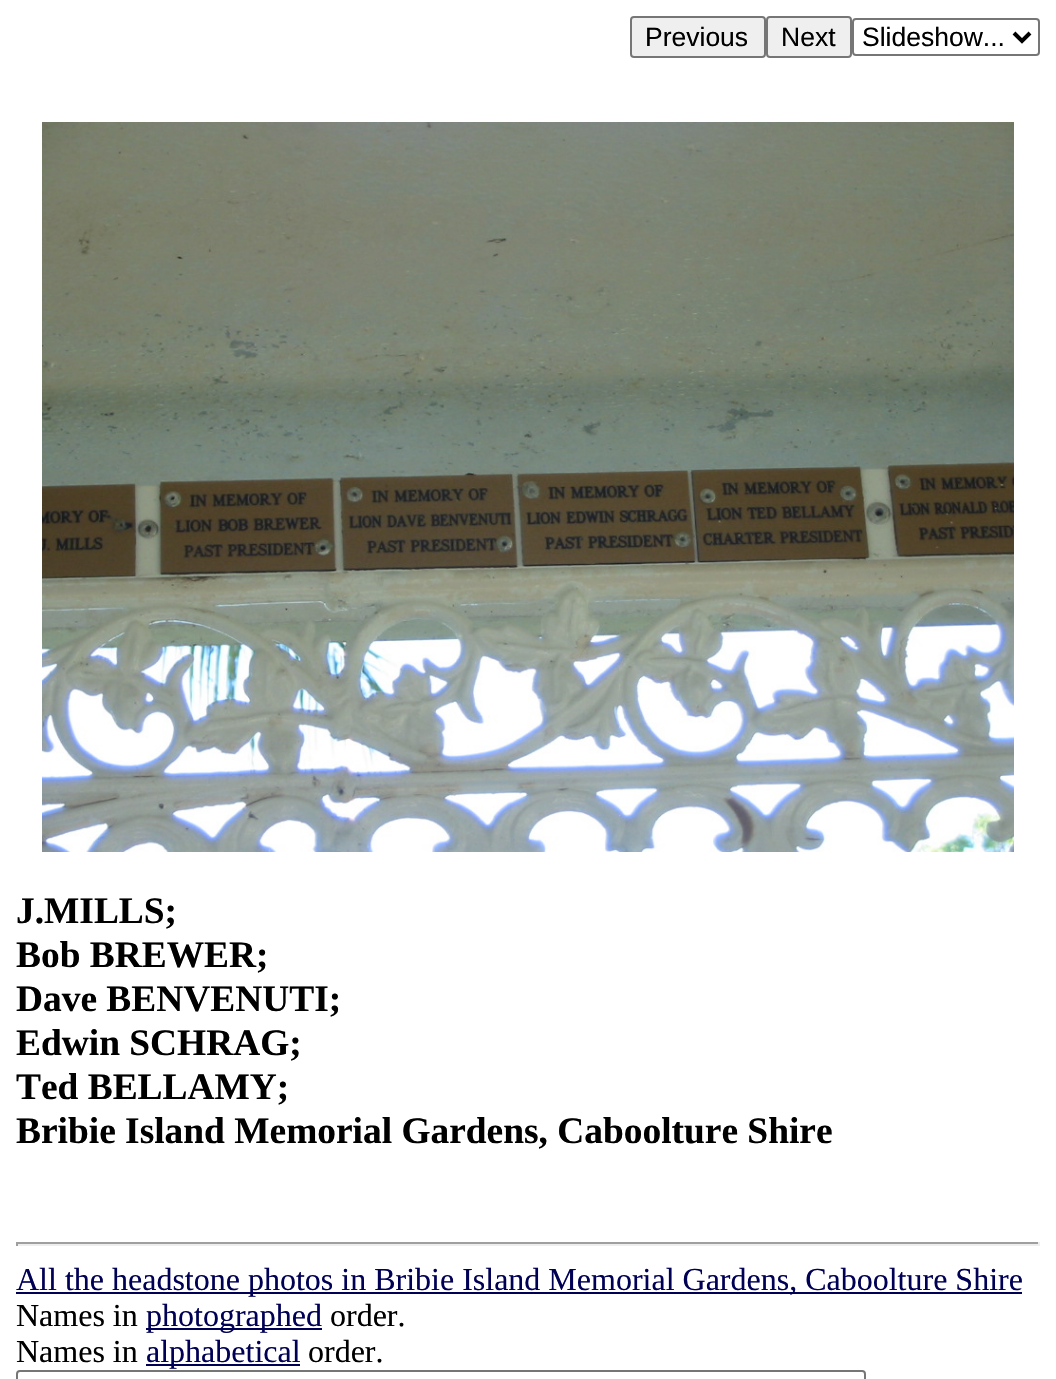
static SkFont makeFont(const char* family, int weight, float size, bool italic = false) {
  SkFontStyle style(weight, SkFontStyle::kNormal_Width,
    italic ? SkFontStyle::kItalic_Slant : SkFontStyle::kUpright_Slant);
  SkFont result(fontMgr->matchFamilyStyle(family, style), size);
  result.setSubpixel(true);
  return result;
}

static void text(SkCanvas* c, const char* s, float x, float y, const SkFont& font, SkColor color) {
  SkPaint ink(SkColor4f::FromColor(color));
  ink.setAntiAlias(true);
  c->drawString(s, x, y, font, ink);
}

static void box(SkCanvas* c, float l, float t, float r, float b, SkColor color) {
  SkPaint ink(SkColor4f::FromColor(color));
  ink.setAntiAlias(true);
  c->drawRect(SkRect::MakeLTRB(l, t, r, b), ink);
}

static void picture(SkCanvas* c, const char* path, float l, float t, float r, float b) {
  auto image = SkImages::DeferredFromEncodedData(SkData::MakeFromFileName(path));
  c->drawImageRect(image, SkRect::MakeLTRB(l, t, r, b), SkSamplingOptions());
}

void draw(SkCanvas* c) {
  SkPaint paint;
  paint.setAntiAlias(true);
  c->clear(0xffffffff);
  paint.setColor(0xffefefef);
  c->drawRoundRect(SkRect::MakeLTRB(631, 17, 765, 57), 3, 3, paint);
  paint.setStyle(SkPaint::kStroke_Style);
  paint.setStrokeWidth(2);
  paint.setColor(0xff767676);
  c->drawRoundRect(SkRect::MakeLTRB(631, 17, 765, 57), 3, 3, paint);
  SkFont face1 = makeFont("Liberation Sans", 400, 26.5f);
  text(c, "Previous", 645, 46, face1, 0xff000000);
  paint.setStyle(SkPaint::kFill_Style);
  paint.setColor(0xffefefef);
  c->drawRoundRect(SkRect::MakeLTRB(767, 17, 851, 57), 3, 3, paint);
  paint.setStyle(SkPaint::kStroke_Style);
  paint.setColor(0xff767676);
  c->drawRoundRect(SkRect::MakeLTRB(767, 17, 851, 57), 3, 3, paint);
  text(c, "Next", 781, 46, face1, 0xff000000);
  c->drawRoundRect(SkRect::MakeLTRB(853, 19, 1039, 55), 3, 3, paint);
  paint.setStrokeWidth(4);
  paint.setColor(0xff000000);
  c->drawPath(SkPathBuilder().moveTo(1014, 33).lineTo(1022, 41).lineTo(1030, 33).detach(), paint);
  text(c, "Slideshow...", 862, 46, face1, 0xff000000);
  picture(c, "img_01.png", 42, 122, 1014, 852);
  SkFont face2 = makeFont("Liberation Serif", 700, 37.4f);
  text(c, "J.MILLS;", 16, 923, face2, 0xff000000);
  text(c, "Bob BREWER;", 16, 967, face2, 0xff000000);
  text(c, "Dave BENVENUTI;", 16, 1011, face2, 0xff000000);
  text(c, "Edwin SCHRAG;", 16, 1055, face2, 0xff000000);
  text(c, "Ted BELLAMY;", 16, 1099, face2, 0xff000000);
  text(c, "Bribie Island Memorial Gardens, Caboolture Shire", 16, 1143, face2, 0xff000000);
  box(c, 16, 1242, 1040, 1244, 0xff9f9f9f);
  box(c, 1038, 1242, 1040, 1246, 0xffeeeeee);
  box(c, 16, 1244, 1040, 1246, 0xffeeeeee);
  box(c, 16, 1242, 18, 1246, 0xff9f9f9f);
  box(c, 16, 1292, 1022, 1294, 0xff000055);
  SkFont face3 = makeFont("Liberation Serif", 400, 32);
  text(c, "All the headstone photos in Bribie Island Memorial Gardens, Caboolture Shire", 16, 1290, face3, 0xff000055);
  text(c, "Names in", 16, 1326, face3, 0xff000000);
  box(c, 146, 1328, 322, 1330, 0xff000055);
  text(c, "photographed", 146, 1326, face3, 0xff000055);
  text(c, "order.", 330, 1326, face3, 0xff000000);
  text(c, "Names in", 16, 1362, face3, 0xff000000);
  box(c, 146, 1364, 300, 1366, 0xff000055);
  text(c, "alphabetical", 146, 1362, face3, 0xff000055);
  text(c, "order.", 308, 1362, face3, 0xff000000);
  paint.setStrokeWidth(2);
  paint.setColor(0xff767676);
  c->drawRoundRect(SkRect::MakeLTRB(17, 1371, 865, 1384), 3, 3, paint);
}
